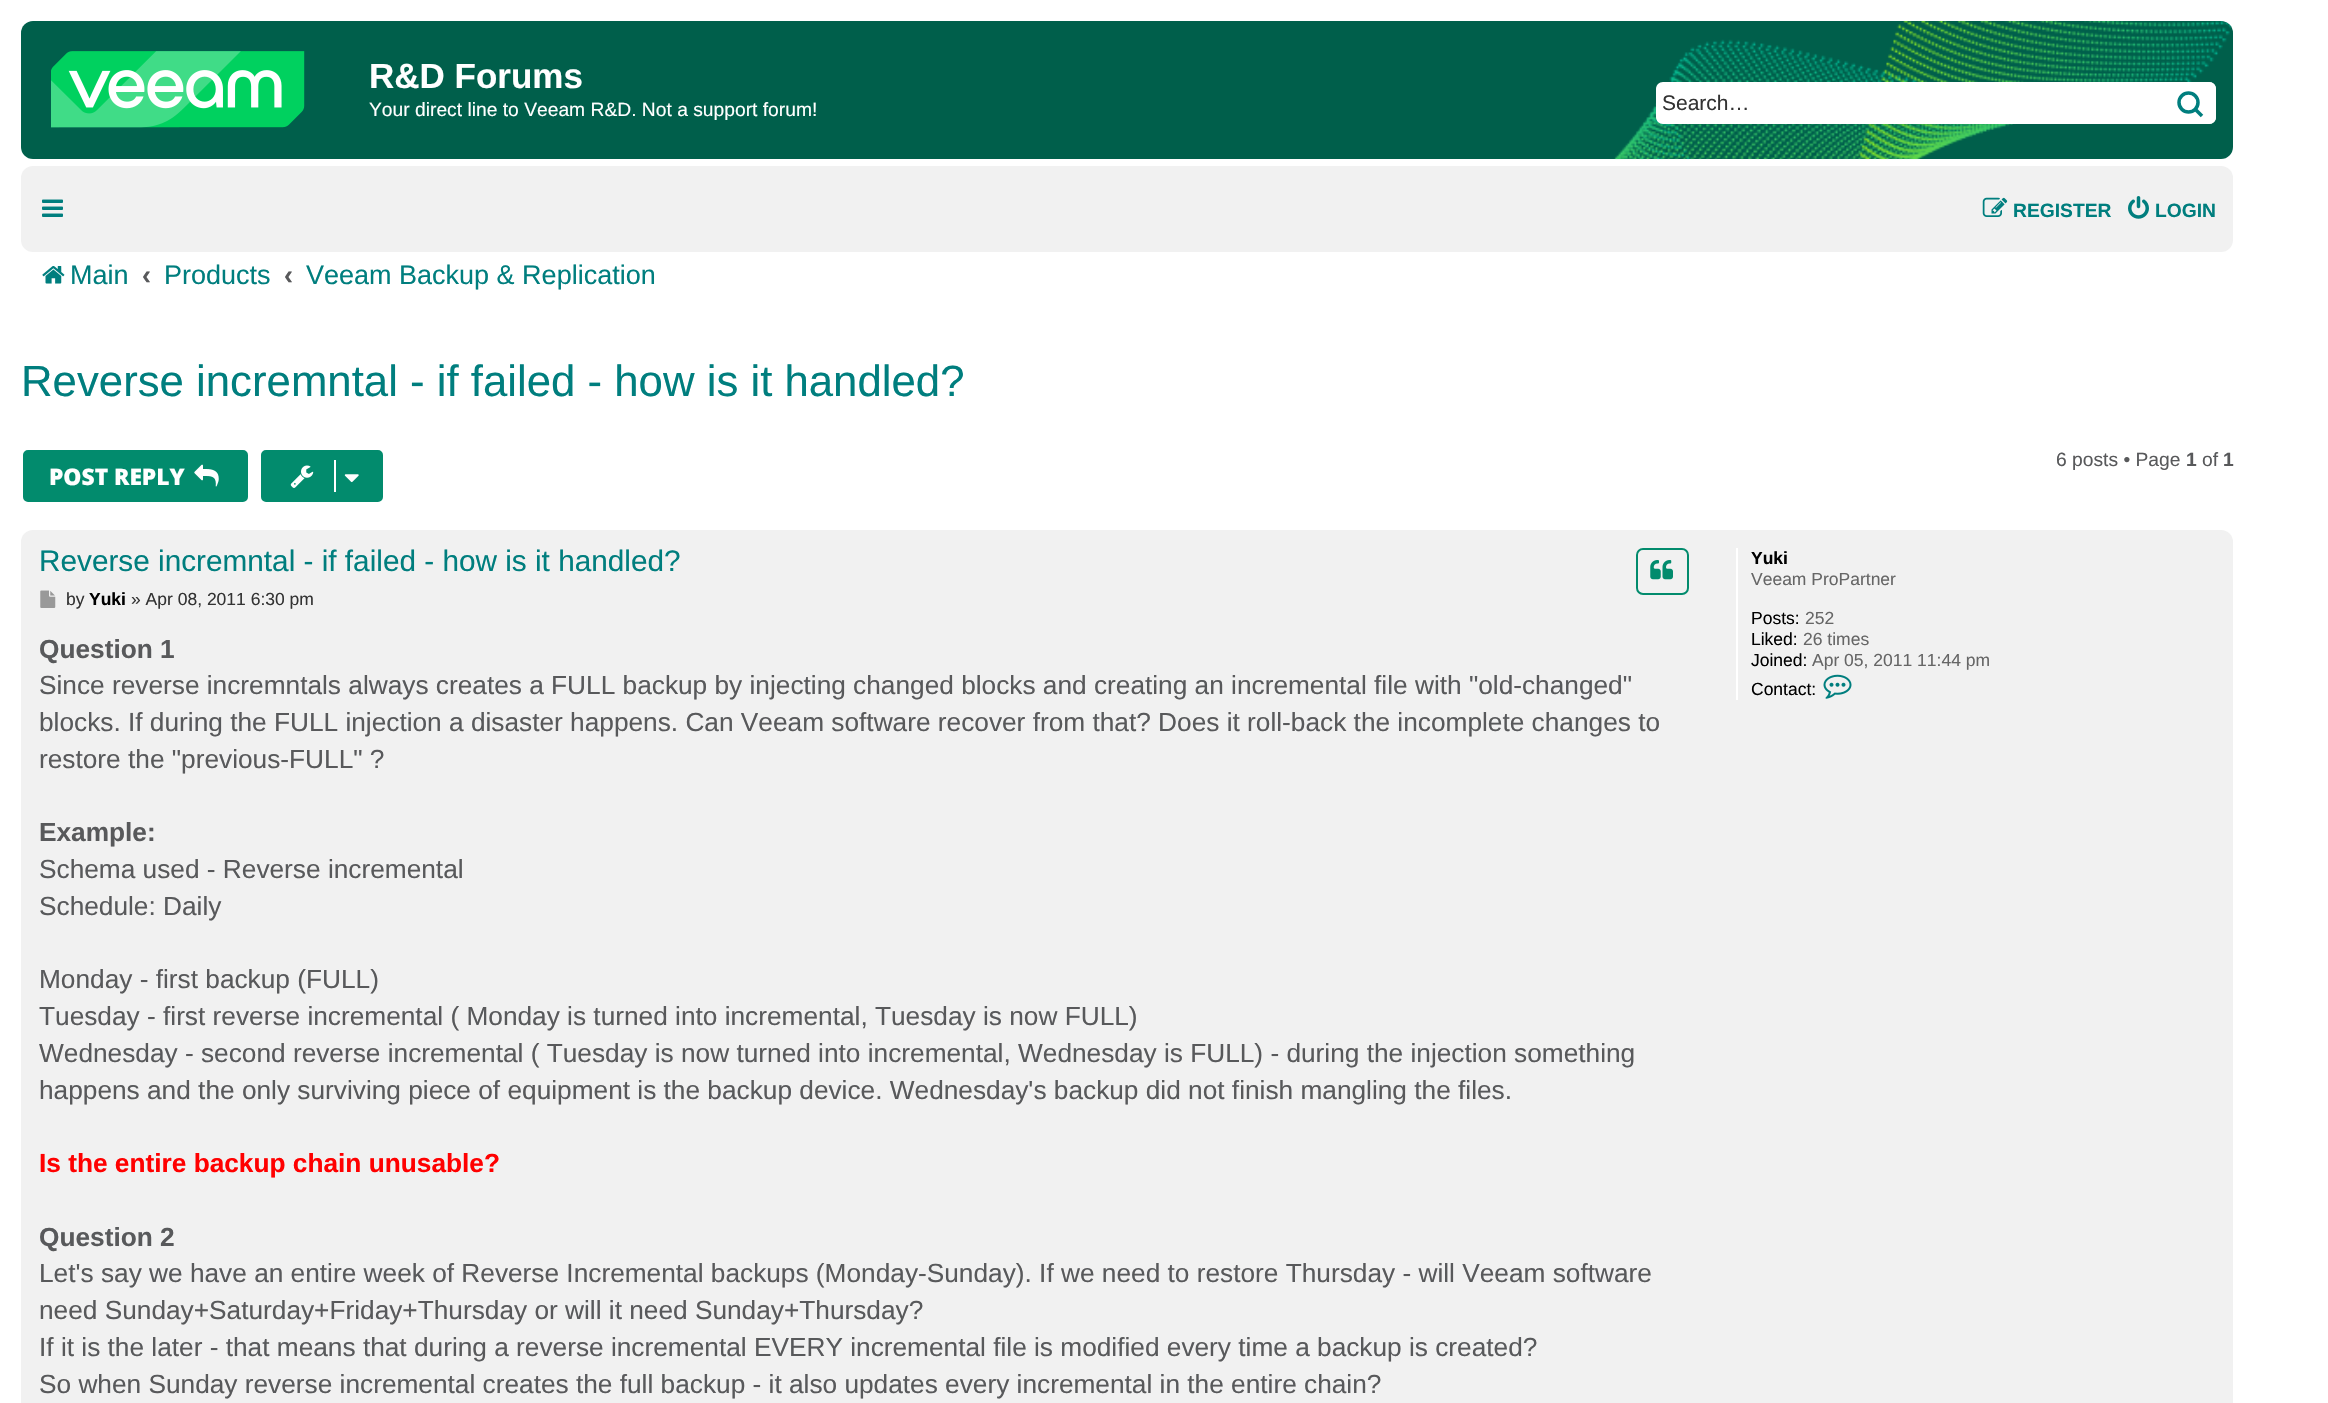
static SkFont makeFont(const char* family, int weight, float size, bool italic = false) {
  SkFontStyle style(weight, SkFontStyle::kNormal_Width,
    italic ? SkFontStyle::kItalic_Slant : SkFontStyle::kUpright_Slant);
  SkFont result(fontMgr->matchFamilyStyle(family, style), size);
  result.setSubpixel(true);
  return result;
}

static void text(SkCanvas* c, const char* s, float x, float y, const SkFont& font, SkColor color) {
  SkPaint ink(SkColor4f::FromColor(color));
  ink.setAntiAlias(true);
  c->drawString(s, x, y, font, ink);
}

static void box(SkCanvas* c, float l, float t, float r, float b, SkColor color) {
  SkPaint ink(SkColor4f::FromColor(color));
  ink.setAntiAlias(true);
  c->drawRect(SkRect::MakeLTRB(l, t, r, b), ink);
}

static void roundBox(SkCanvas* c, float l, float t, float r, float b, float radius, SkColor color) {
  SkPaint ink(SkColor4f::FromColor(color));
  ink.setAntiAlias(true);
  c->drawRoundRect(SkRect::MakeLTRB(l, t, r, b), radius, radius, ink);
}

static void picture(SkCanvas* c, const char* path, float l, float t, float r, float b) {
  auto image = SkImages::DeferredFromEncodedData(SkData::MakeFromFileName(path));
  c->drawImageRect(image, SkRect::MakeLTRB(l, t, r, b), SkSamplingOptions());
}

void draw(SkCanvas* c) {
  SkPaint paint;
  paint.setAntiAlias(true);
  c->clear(0xffffffff);
  roundBox(c, 21, 21, 2233, 159, 12, 0xff005f4b);
  picture(c, "img_01.png", 1614, 21, 2232, 160);
  picture(c, "img_02.png", 51, 51, 305, 128);
  SkFont face1 = makeFont("Liberation Sans", 700, 35);
  text(c, "R&D Forums", 369, 88, face1, 0xffffffff);
  SkFont face2 = makeFont("Liberation Sans", 400, 19.25f);
  text(c, "Your direct line to Veeam R&D. Not a support forum!", 369, 116, face2, 0xffffffff);
  paint.setColor(0xffffffff);
  c->drawPath(SkPathBuilder().moveTo(1663, 82).lineTo(2163, 82).lineTo(2163, 124).lineTo(1663, 124).cubicTo(1659, 124, 1656, 121, 1656, 117).lineTo(1656, 89).cubicTo(1656, 85, 1659, 82, 1663, 82).close().detach(), paint);
  SkFont face3 = makeFont("Liberation Sans", 400, 21);
  text(c, "Search…", 1662, 110, face3, 0xff333333);
  c->drawPath(SkPathBuilder().moveTo(2163, 82).lineTo(2209, 82).cubicTo(2213, 82, 2216, 85, 2216, 89).lineTo(2216, 117).cubicTo(2216, 121, 2213, 124, 2209, 124).lineTo(2163, 124).close().detach(), paint);
  paint.setStyle(SkPaint::kStroke_Style);
  paint.setStrokeWidth(3.5f);
  paint.setColor(0xff007e7e);
  c->drawCircle(2188.5f, 102.5f, 9.5f, paint);
  c->drawPath(SkPathBuilder().moveTo(2202, 116).lineTo(2195, 109).detach(), paint);
  paint.setStrokeWidth(2);
  paint.setColor(0xffffffff);
  c->drawPath(SkPathBuilder().moveTo(2164, 83).lineTo(2209, 83).cubicTo(2212.5f, 83, 2215, 85.5f, 2215, 89).lineTo(2215, 117).cubicTo(2215, 120.5f, 2212.5f, 123, 2209, 123).lineTo(2164, 123).close().detach(), paint);
  roundBox(c, 21, 166, 2233, 252, 12, 0xfff1f1f1);
  picture(c, "img_03.png", 42, 199, 63, 217);
  picture(c, "img_04.png", 1982, 197, 2008, 217);
  SkFont face4 = makeFont("Liberation Sans", 700, 19.25f);
  text(c, "REGISTER", 2013, 217, face4, 0xff007e7e);
  picture(c, "img_05.png", 2128, 196, 2149, 219);
  text(c, "LOGIN", 2155, 217, face4, 0xff007e7e);
  picture(c, "img_06.png", 42, 266, 65, 284);
  SkFont face5 = makeFont("Liberation Sans", 400, 27);
  text(c, "Main", 70, 284, face5, 0xff007e7e);
  SkFont face6 = makeFont("Liberation Sans", 700, 27);
  text(c, "‹", 142, 284, face6, 0xff58595b);
  text(c, "Products", 164, 284, face5, 0xff007e7e);
  text(c, "‹", 284, 284, face6, 0xff58595b);
  text(c, "Veeam Backup & Replication", 306, 284, face5, 0xff007e7e);
  SkFont face7 = makeFont("Liberation Sans", 400, 43.75f);
  text(c, "Reverse incremntal - if failed - how is it handled?", 21, 396, face7, 0xff007e7e);
  paint.setStyle(SkPaint::kFill_Style);
  paint.setColor(0xff028b6d);
  c->drawRoundRect(SkRect::MakeLTRB(260, 449, 384, 503), 6, 6, paint);
  paint.setStyle(SkPaint::kStroke_Style);
  paint.setColor(0xffffffff);
  c->drawRoundRect(SkRect::MakeLTRB(260, 449, 384, 503), 6, 6, paint);
  picture(c, "img_07.png", 290, 465, 314, 488);
  box(c, 334, 460, 336, 492, 0xffffffff);
  picture(c, "img_08.png", 344, 474, 359, 483);
  text(c, "6 posts • Page", 2056, 466, face2, 0xff58595b);
  text(c, "1", 2186, 466, face4, 0xff58595b);
  text(c, "of", 2202, 466, face2, 0xff58595b);
  text(c, "1", 2223, 466, face4, 0xff58595b);
  paint.setStyle(SkPaint::kFill_Style);
  paint.setColor(0xff028b6d);
  c->drawRoundRect(SkRect::MakeLTRB(22, 449, 249, 503), 6, 6, paint);
  paint.setStyle(SkPaint::kStroke_Style);
  paint.setColor(0xffffffff);
  c->drawRoundRect(SkRect::MakeLTRB(22, 449, 249, 503), 6, 6, paint);
  SkFont face8 = makeFont("Open Sans", 800, 22.75f);
  text(c, "POST REPLY", 49, 485, face8, 0xffffffff);
  picture(c, "img_09.png", 194, 464, 219, 487);
  roundBox(c, 21, 530, 2233, 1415, 12, 0xfff1f1f1);
  SkFont face9 = makeFont("Liberation Sans", 400, 29.75f);
  text(c, "Reverse incremntal - if failed - how is it handled?", 39, 571, face9, 0xff007e7e);
  paint.setColor(0xff028b6d);
  c->drawRoundRect(SkRect::MakeLTRB(1637, 549, 1688, 594), 6, 6, paint);
  picture(c, "img_10.png", 1650, 560, 1673, 580);
  picture(c, "img_11.png", 40, 590, 56, 608);
  SkFont face10 = makeFont("Liberation Sans", 400, 17.5f);
  text(c, "by", 66, 605, face10, 0xff333333);
  SkFont face11 = makeFont("Liberation Sans", 700, 17.5f);
  text(c, "Yuki", 89, 605, face11, 0xff000000);
  text(c, "» Apr 08, 2011 6:30 pm", 131, 605, face10, 0xff333333);
  SkFont face12 = makeFont("Liberation Sans", 700, 26.25f);
  text(c, "Question 1", 39, 658, face12, 0xff58595b);
  SkFont face13 = makeFont("Liberation Sans", 400, 26.25f);
  text(c, "Since reverse incremntals always creates a FULL backup by injecting changed blocks and creating an incremental file with \"old-changed\"", 39, 694, face13, 0xff58595b);
  text(c, "blocks. If during the FULL injection a disaster happens. Can Veeam software recover from that? Does it roll-back the incomplete changes to", 39, 731, face13, 0xff58595b);
  text(c, "restore the \"previous-FULL\" ?", 39, 768, face13, 0xff58595b);
  text(c, "Example:", 39, 841, face12, 0xff58595b);
  text(c, "Schema used - Reverse incremental", 39, 878, face13, 0xff58595b);
  text(c, "Schedule: Daily", 39, 915, face13, 0xff58595b);
  text(c, "Monday - first backup (FULL)", 39, 988, face13, 0xff58595b);
  text(c, "Tuesday - first reverse incremental ( Monday is turned into incremental, Tuesday is now FULL)", 39, 1025, face13, 0xff58595b);
  text(c, "Wednesday - second reverse incremental ( Tuesday is now turned into incremental, Wednesday is FULL) - during the injection something", 39, 1062, face13, 0xff58595b);
  text(c, "happens and the only surviving piece of equipment is the backup device. Wednesday's backup did not finish mangling the files.", 39, 1099, face13, 0xff58595b);
  text(c, "Is the entire backup chain unusable?", 39, 1172, face12, 0xffff0000);
  text(c, "Question 2", 39, 1246, face12, 0xff58595b);
  text(c, "Let's say we have an entire week of Reverse Incremental backups (Monday-Sunday). If we need to restore Thursday - will Veeam software", 39, 1282, face13, 0xff58595b);
  text(c, "need Sunday+Saturday+Friday+Thursday or will it need Sunday+Thursday?", 39, 1319, face13, 0xff58595b);
  text(c, "If it is the later - that means that during a reverse incremental EVERY incremental file is modified every time a backup is created?", 39, 1356, face13, 0xff58595b);
  text(c, "So when Sunday reverse incremental creates the full backup - it also updates every incremental in the entire chain?", 39, 1393, face13, 0xff58595b);
  box(c, 1736, 548, 1738, 700, 0xffffffff);
  text(c, "Yuki", 1751, 564, face11, 0xff000000);
  text(c, "Veeam ProPartner", 1751, 585, face10, 0xff666666);
  text(c, "Posts:", 1751, 624, face10, 0xff000000);
  text(c, "252", 1805, 624, face10, 0xff666666);
  text(c, "Liked:", 1751, 645, face10, 0xff000000);
  text(c, "26 times", 1803, 645, face10, 0xff666666);
  text(c, "Joined:", 1751, 666, face10, 0xff000000);
  text(c, "Apr 05, 2011 11:44 pm", 1812, 666, face10, 0xff666666);
  text(c, "Contact:", 1751, 695, face10, 0xff000000);
  picture(c, "img_12.png", 1823, 674, 1852, 699);
}
